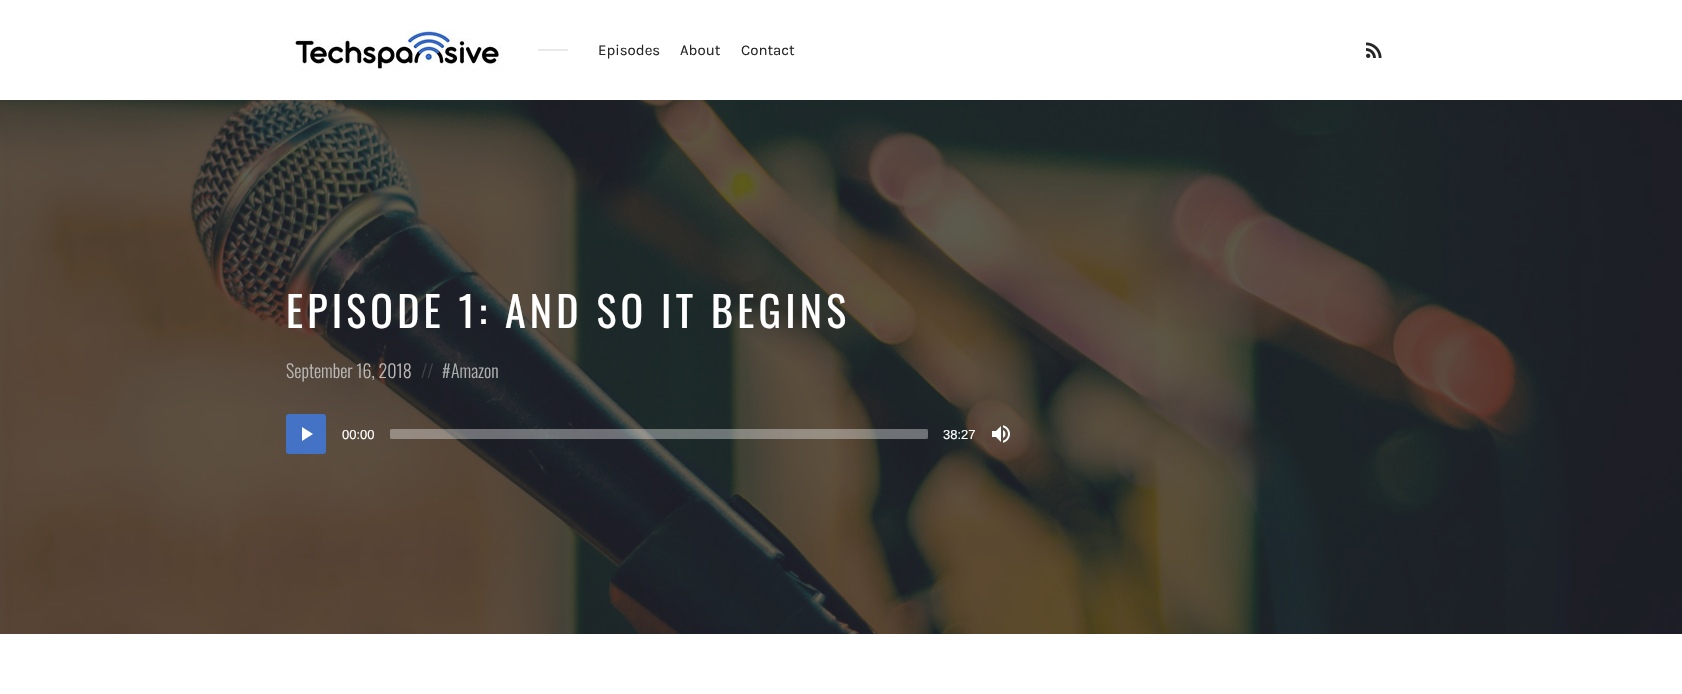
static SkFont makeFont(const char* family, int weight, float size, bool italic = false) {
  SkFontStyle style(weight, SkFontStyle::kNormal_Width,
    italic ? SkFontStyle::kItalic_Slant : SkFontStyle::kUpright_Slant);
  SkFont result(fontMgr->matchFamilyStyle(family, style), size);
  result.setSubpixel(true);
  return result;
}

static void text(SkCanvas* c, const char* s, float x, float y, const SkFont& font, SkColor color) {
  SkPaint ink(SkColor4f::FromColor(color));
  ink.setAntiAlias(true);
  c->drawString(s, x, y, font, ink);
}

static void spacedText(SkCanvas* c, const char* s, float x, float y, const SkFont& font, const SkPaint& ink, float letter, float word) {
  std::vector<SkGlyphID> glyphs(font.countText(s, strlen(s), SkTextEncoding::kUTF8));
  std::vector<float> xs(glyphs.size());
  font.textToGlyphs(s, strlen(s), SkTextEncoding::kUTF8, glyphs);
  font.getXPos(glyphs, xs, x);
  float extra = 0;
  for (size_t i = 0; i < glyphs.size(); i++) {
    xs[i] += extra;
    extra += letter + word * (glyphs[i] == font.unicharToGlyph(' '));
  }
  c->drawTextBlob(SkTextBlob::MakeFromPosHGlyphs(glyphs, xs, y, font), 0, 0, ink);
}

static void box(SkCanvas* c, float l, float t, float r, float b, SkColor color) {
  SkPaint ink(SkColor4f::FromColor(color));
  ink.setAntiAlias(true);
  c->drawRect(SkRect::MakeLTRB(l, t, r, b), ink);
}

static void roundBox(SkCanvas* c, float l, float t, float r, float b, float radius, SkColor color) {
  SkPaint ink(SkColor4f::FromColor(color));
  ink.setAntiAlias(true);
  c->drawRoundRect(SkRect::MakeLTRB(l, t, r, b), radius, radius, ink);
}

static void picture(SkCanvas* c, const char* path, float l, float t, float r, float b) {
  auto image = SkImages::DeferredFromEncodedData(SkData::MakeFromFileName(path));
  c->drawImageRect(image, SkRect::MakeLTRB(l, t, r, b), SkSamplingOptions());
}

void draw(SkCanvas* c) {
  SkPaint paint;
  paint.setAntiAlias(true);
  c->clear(0xffffffff);
  picture(c, "img_01.png", 294, 30, 502, 70);
  box(c, 538, 49, 568, 51, 0xffe9e9e9);
  SkFont face1 = makeFont("Karla", 400, 15);
  text(c, "Episodes", 598, 55, face1, 0xff262626);
  text(c, "About", 680, 55, face1, 0xff262626);
  text(c, "Contact", 741, 55, face1, 0xff262626);
  picture(c, "img_02.png", 1366, 42, 1382, 58);
  picture(c, "img_03.png", 0, 100, 1682, 634);
  SkFont face2 = makeFont("Oswald", 400, 42);
  paint.setColor(0xffffffff);
  spacedText(c, "EPISODE 1: AND SO IT BEGINS", 286, 328, face2, paint, 4.2f, 0);
  SkFont face3 = makeFont("Oswald", 300, 18);
  text(c, "September 16, 2018", 286, 378, face3, 0xffbbb8b6);
  text(c, "//", 421, 378, face3, 0xff414349);
  text(c, "#", 442, 378, face3, 0xffaeb0b2);
  text(c, "Amazon", 451, 378, face3, 0xffaeb0b2);
  roundBox(c, 286, 414, 326, 454, 3, 0xff4472c4);
  c->drawPath(SkPathBuilder().moveTo(302, 427).lineTo(302, 441).lineTo(313, 434).close().detach(), paint);
  SkFont face4 = makeFont("Liberation Sans", 400, 13);
  text(c, "00:00", 342, 439, face4, 0xffffffff);
  box(c, 390, 429, 928, 439, 0x33ffffff);
  roundBox(c, 390, 429, 928, 439, 3, 0x33ffffff);
  text(c, "38:27", 943, 439, face4, 0xffffffff);
  picture(c, "img_04.png", 992, 425, 1010, 443);
}
